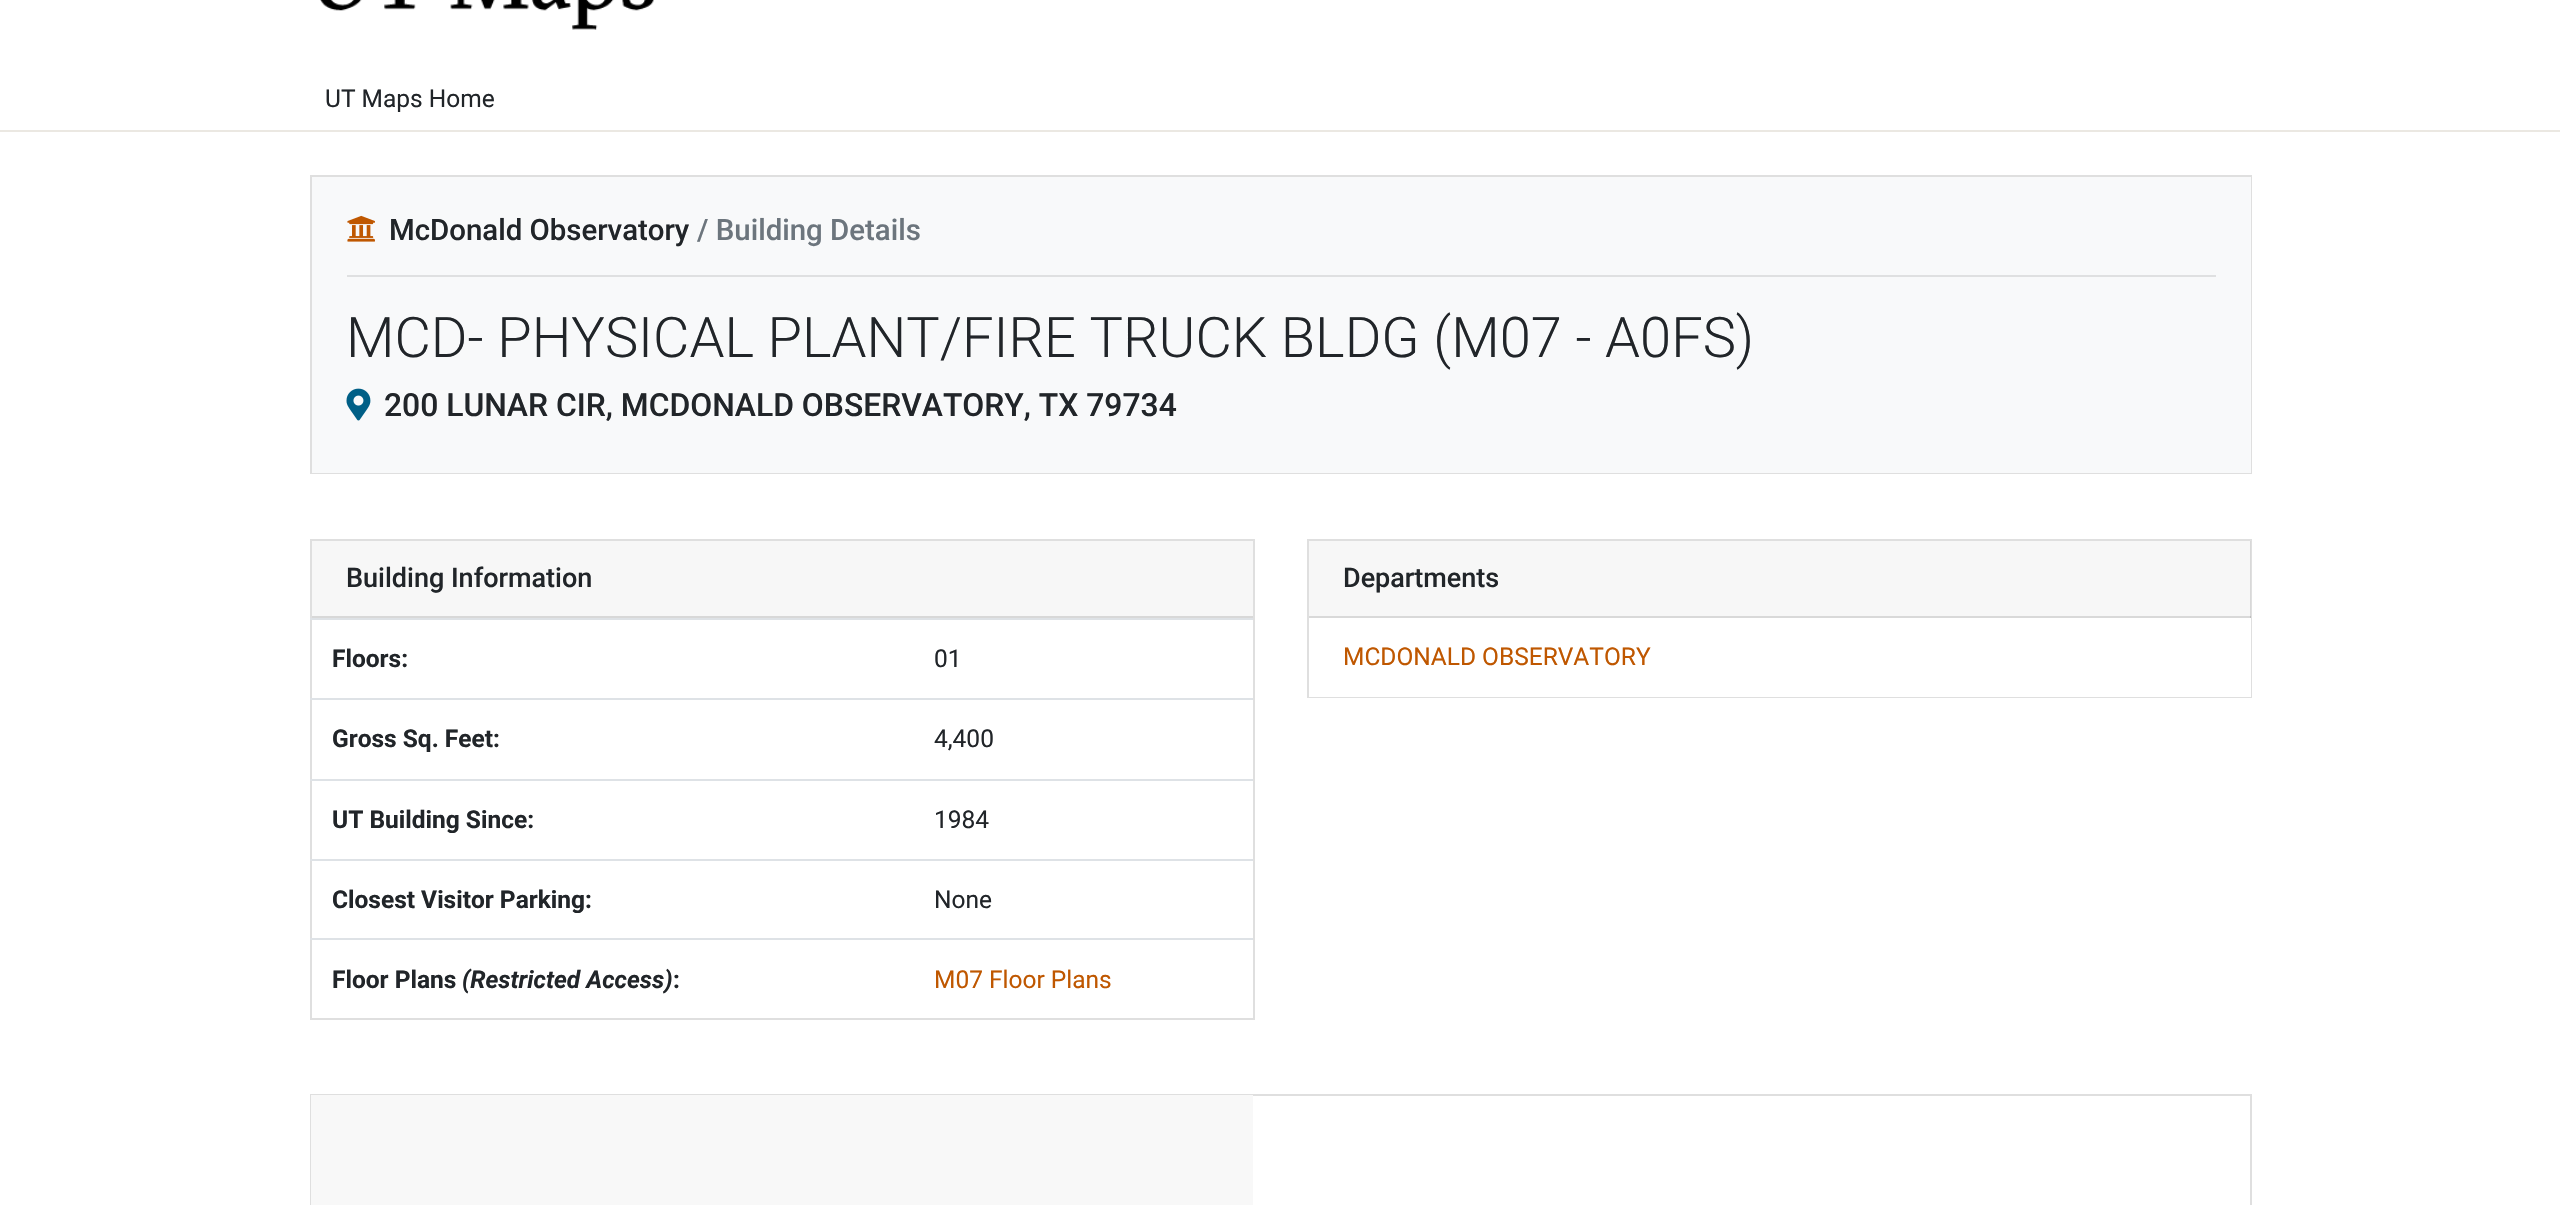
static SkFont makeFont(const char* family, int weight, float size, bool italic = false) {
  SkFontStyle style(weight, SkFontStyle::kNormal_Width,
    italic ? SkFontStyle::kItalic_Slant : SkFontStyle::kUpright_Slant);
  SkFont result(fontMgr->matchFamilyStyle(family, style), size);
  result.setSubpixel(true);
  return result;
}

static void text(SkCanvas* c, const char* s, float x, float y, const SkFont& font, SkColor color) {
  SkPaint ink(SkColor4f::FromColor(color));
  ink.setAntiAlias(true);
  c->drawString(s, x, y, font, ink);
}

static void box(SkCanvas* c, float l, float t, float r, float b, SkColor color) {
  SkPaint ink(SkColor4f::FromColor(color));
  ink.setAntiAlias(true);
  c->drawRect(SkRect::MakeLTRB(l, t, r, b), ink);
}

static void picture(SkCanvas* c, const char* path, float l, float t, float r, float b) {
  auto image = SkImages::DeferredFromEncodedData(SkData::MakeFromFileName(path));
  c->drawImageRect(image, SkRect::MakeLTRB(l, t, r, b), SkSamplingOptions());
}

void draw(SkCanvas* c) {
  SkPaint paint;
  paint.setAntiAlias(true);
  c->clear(0xffffffff);
  box(c, 0, 130, 2560, 132, 0xffebe8e2);
  picture(c, "img_01.png", 320, 0, 654, 30);
  SkFont face1 = makeFont("Roboto", 400, 24.5f);
  text(c, "UT Maps Home", 325, 107, face1, 0xff212529);
  paint.setStyle(SkPaint::kStroke_Style);
  paint.setStrokeWidth(2);
  paint.setColor(0xffdfdfdf);
  c->drawRect(SkRect::MakeLTRB(311, 176, 2251, 473), paint);
  box(c, 312, 177, 2251, 473, 0xfff8f9fa);
  picture(c, "img_02.png", 347, 215, 375, 242);
  SkFont face2 = makeFont("Roboto", 500, 29.4f);
  text(c, "McDonald Observatory", 389, 240, face2, 0xff212529);
  text(c, "/ Building Details", 697, 240, face2, 0xff6c757d);
  box(c, 347, 275, 2216, 277, 0xffdfe0e1);
  SkFont face3 = makeFont("Roboto", 300, 56);
  text(c, "MCD- PHYSICAL PLANT/FIRE TRUCK BLDG (M07 - A0FS)", 346, 357, face3, 0xff212529);
  picture(c, "img_03.png", 346, 388, 371, 421);
  SkFont face4 = makeFont("Roboto", 500, 31.85f);
  text(c, "200 LUNAR CIR, MCDONALD OBSERVATORY, TX 79734", 384, 416, face4, 0xff212529);
  c->drawRect(SkRect::MakeLTRB(311, 540, 1254, 1019), paint);
  box(c, 312, 541, 1253, 616, 0xfff7f7f7);
  box(c, 312, 616, 1253, 618, 0xffd8d8d8);
  SkFont face5 = makeFont("Roboto", 500, 27);
  text(c, "Building Information", 346, 587, face5, 0xff212529);
  SkFont face6 = makeFont("Roboto", 700, 24.5f);
  text(c, "Floors:", 332, 667, face6, 0xff212529);
  box(c, 310, 618, 1253, 620, 0xffdee2e6);
  text(c, "01", 934, 667, face1, 0xff212529);
  text(c, "Gross Sq. Feet:", 332, 747, face6, 0xff212529);
  box(c, 310, 698, 1253, 700, 0xffdee2e6);
  text(c, "4,400", 934, 747, face1, 0xff212529);
  text(c, "UT Building Since:", 332, 828, face6, 0xff212529);
  box(c, 310, 779, 1253, 781, 0xffdee2e6);
  text(c, "1984", 934, 828, face1, 0xff212529);
  text(c, "Closest Visitor Parking:", 332, 908, face6, 0xff212529);
  box(c, 310, 859, 1253, 861, 0xffdee2e6);
  text(c, "None", 934, 908, face1, 0xff212529);
  text(c, "Floor Plans", 332, 988, face6, 0xff212529);
  SkFont face7 = makeFont("Roboto", 700, 24.5f, true);
  text(c, "(Restricted Access)", 462, 988, face7, 0xff212529);
  text(c, ":", 673, 988, face6, 0xff212529);
  box(c, 310, 938, 1253, 940, 0xffdee2e6);
  text(c, "M07 Floor Plans", 934, 988, face1, 0xffbf5700);
  c->drawRect(SkRect::MakeLTRB(1308, 540, 2251, 697), paint);
  box(c, 1309, 541, 2251, 618, 0x08000000);
  box(c, 1309, 616, 2251, 618, 0x1f000000);
  text(c, "Departments", 1343, 587, face5, 0xff212529);
  box(c, 1309, 618, 2251, 697, 0xffffffff);
  text(c, "MCDONALD OBSERVATORY", 1343, 665, face1, 0xffbf5700);
  c->drawRect(SkRect::MakeLTRB(311, 1095, 2251, 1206), paint);
  box(c, 311, 1095, 1253, 1205, 0xfff8f8f8);
}
